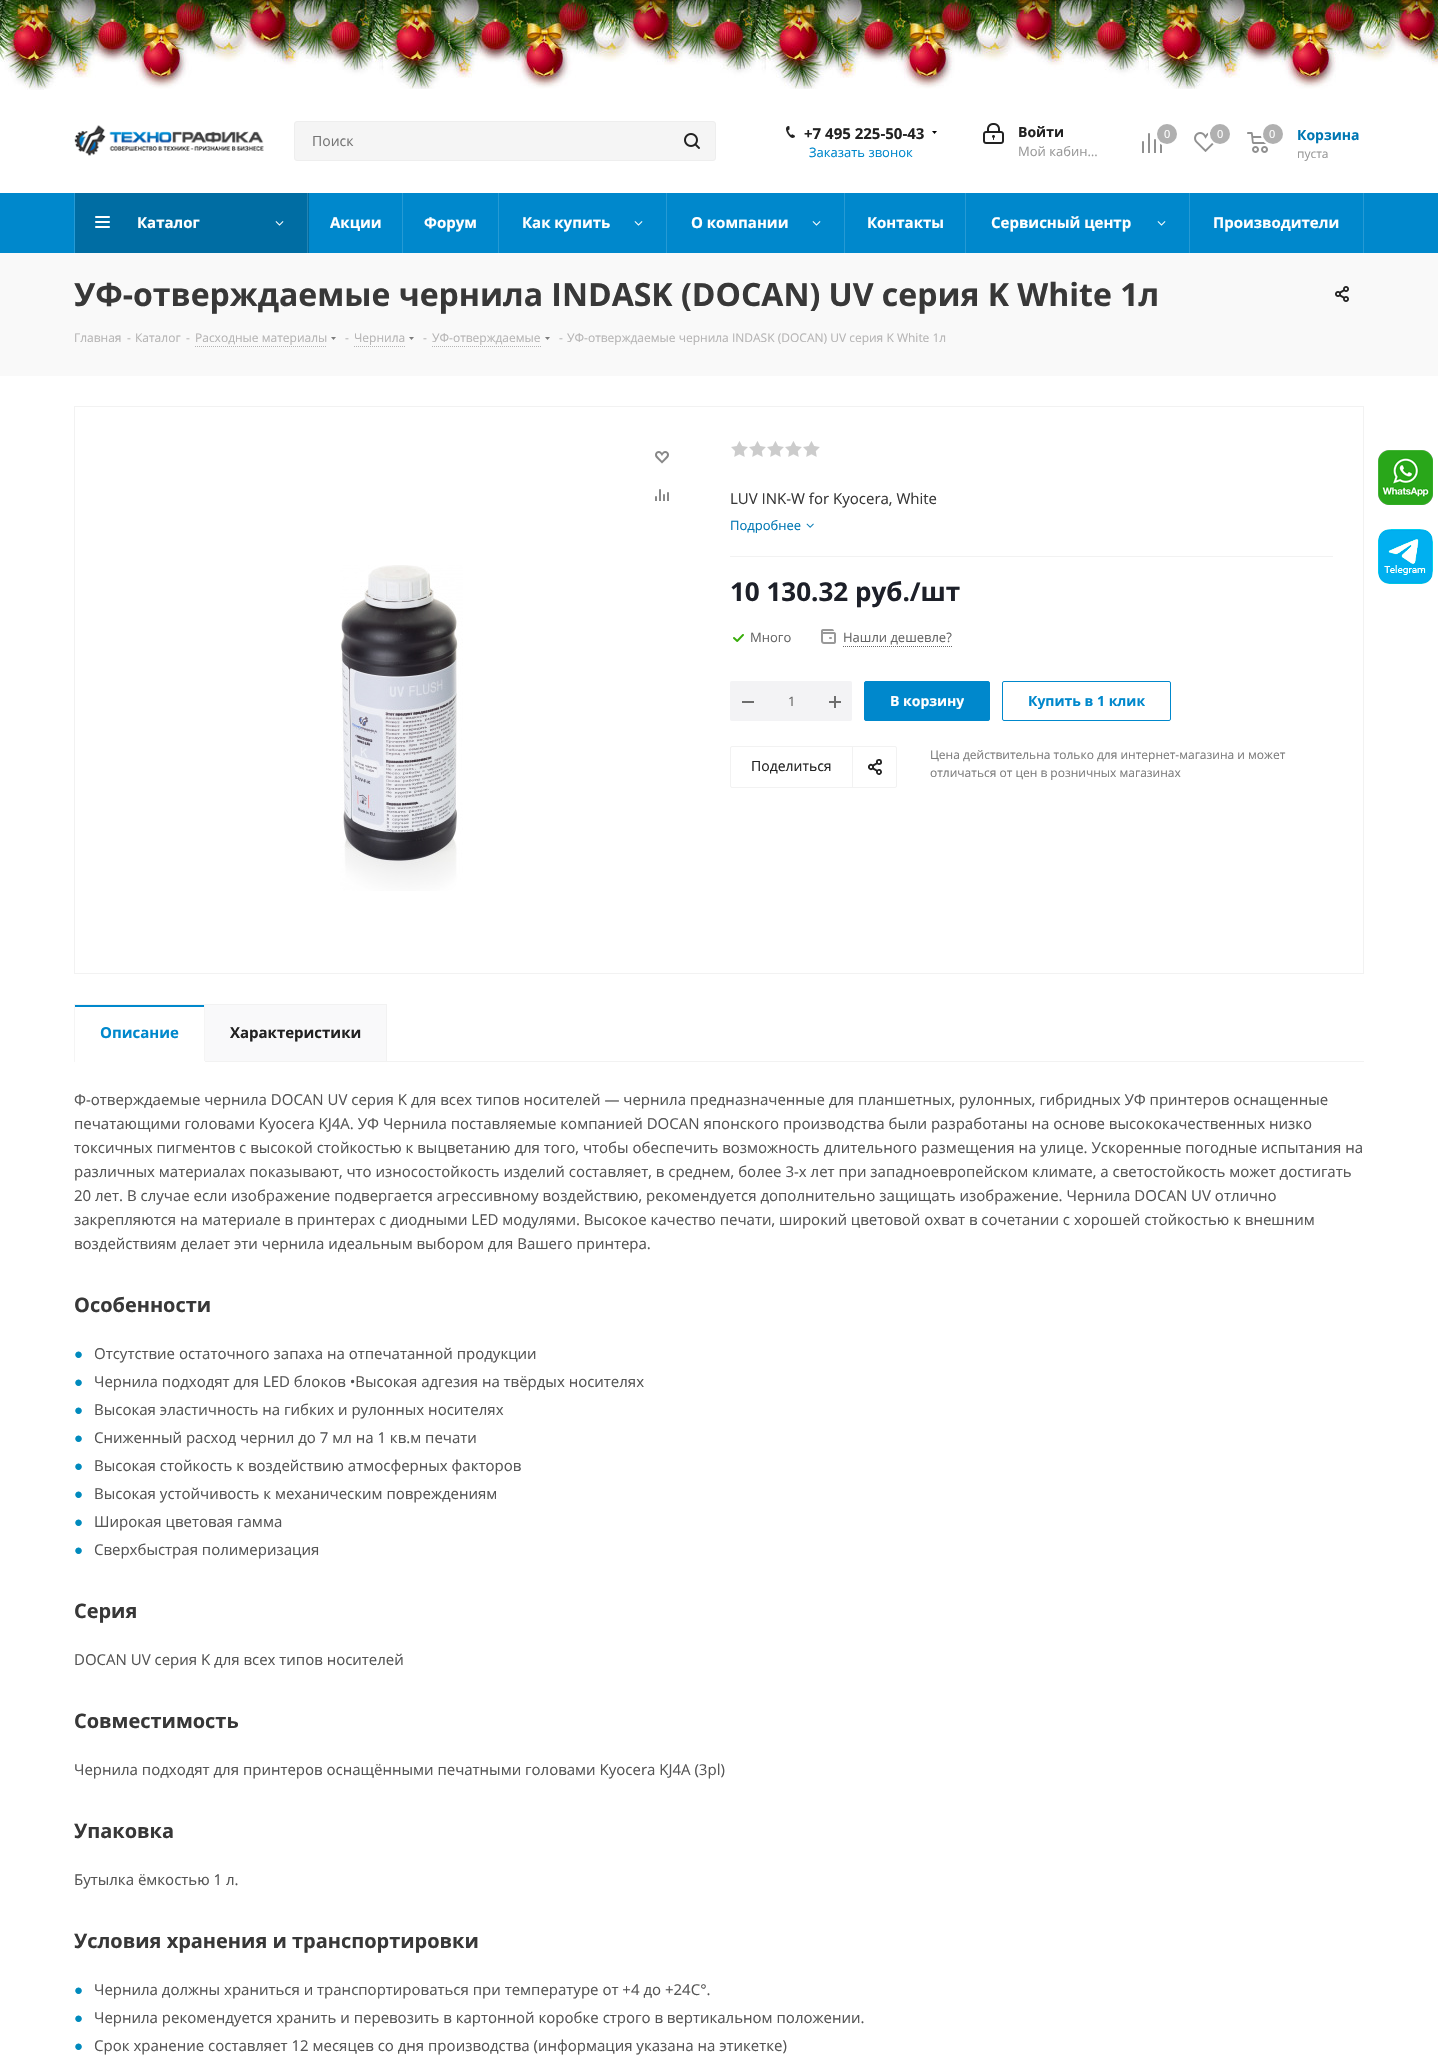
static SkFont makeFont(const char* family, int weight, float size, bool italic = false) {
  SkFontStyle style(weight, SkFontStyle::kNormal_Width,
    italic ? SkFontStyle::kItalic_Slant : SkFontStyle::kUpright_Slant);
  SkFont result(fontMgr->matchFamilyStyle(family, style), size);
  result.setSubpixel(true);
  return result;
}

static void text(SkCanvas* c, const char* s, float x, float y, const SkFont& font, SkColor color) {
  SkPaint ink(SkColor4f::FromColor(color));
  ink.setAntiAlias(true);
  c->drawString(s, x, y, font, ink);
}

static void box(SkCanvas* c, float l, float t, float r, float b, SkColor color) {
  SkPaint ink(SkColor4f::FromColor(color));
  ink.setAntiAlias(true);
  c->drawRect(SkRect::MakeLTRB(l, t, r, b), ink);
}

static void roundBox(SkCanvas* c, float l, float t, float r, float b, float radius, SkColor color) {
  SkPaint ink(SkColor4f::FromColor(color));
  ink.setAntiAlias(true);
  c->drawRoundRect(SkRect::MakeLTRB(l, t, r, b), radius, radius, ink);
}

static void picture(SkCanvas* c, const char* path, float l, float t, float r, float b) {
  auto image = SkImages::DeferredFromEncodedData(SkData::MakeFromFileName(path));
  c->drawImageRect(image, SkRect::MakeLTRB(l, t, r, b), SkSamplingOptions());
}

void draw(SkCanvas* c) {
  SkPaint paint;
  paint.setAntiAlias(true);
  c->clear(0xffffffff);
  picture(c, "img_01.png", 0, 0, 1438, 90);
  box(c, 44, 89, 1320, 90, 0xffffffff);
  picture(c, "img_02.png", 74, 125, 264, 156);
  paint.setColor(0xfff5f5f5);
  c->drawRoundRect(SkRect::MakeLTRB(294.5f, 121.5f, 715.5f, 160.5f), 2.5f, 2.5f, paint);
  paint.setStyle(SkPaint::kStroke_Style);
  paint.setStrokeWidth(1);
  paint.setColor(0xffeeeeee);
  c->drawRoundRect(SkRect::MakeLTRB(294.5f, 121.5f, 715.5f, 160.5f), 2.5f, 2.5f, paint);
  SkFont face1 = makeFont("Open Sans", 400, 14);
  text(c, "Поиск", 312, 146, face1, 0xff757575);
  picture(c, "img_03.png", 684, 133, 700, 149);
  picture(c, "img_04.png", 786, 126, 795, 138);
  SkFont face2 = makeFont("Open Sans", 700, 15);
  text(c, "+7 495 225-50-43", 804, 139, face2, 0xff222222);
  picture(c, "img_05.png", 932, 131, 937, 134);
  SkFont face3 = makeFont("Open Sans", 400, 13);
  text(c, "Заказать звонок", 809, 157, face3, 0xff0088cc);
  picture(c, "img_06.png", 983, 123, 1004, 144);
  SkFont face4 = makeFont("Open Sans", 700, 14);
  text(c, "Войти", 1018, 137, face4, 0xff222222);
  text(c, "Мой кабин…", 1018, 156, face3, 0xff999999);
  picture(c, "img_07.png", 1142, 133, 1162, 153);
  paint.setStrokeWidth(2);
  paint.setColor(0xffffffff);
  c->drawCircle(1167, 134, 11, paint);
  paint.setStyle(SkPaint::kFill_Style);
  paint.setColor(0xffb0b0b0);
  c->drawCircle(1167, 134, 10, paint);
  SkFont face5 = makeFont("Open Sans", 400, 11);
  text(c, "0", 1164, 138, face5, 0xffffffff);
  picture(c, "img_08.png", 1194, 132, 1216, 152);
  paint.setStyle(SkPaint::kStroke_Style);
  paint.setColor(0xffffffff);
  c->drawCircle(1220, 134, 11, paint);
  paint.setStyle(SkPaint::kFill_Style);
  paint.setColor(0xffb0b0b0);
  c->drawCircle(1220, 134, 10, paint);
  text(c, "0", 1217, 138, face5, 0xffffffff);
  picture(c, "img_09.png", 1247, 132, 1269, 153);
  paint.setStyle(SkPaint::kStroke_Style);
  paint.setColor(0xffffffff);
  c->drawCircle(1273, 134, 11, paint);
  c->drawCircle(1273, 134, 11, paint);
  paint.setStyle(SkPaint::kFill_Style);
  paint.setColor(0xffb0b0b0);
  c->drawCircle(1273, 134, 10, paint);
  text(c, "0", 1269, 138, face5, 0xffffffff);
  text(c, "Корзина", 1297, 140, face4, 0xff0077b3);
  SkFont face6 = makeFont("Open Sans", 400, 12);
  text(c, "пуста", 1297, 158, face6, 0xff999999);
  box(c, 0, 193, 1438, 253, 0xff0088cc);
  box(c, 74, 193, 75, 253, 0xff269ad4);
  box(c, 75, 193, 309, 253, 0xff006da3);
  box(c, 307, 193, 308, 253, 0xff2683b1);
  picture(c, "img_10.png", 95, 216, 110, 228);
  text(c, "Каталог", 137, 228, face2, 0xffffffff);
  picture(c, "img_11.png", 275, 221, 284, 226);
  box(c, 402, 193, 403, 253, 0xff269ad4);
  text(c, "Акции", 330, 228, face2, 0xffffffff);
  box(c, 498, 193, 499, 253, 0xff269ad4);
  text(c, "Форум", 424, 228, face2, 0xffffffff);
  box(c, 666, 193, 667, 253, 0xff269ad4);
  text(c, "Как купить", 522, 228, face2, 0xffffffff);
  picture(c, "img_12.png", 634, 221, 643, 226);
  box(c, 844, 193, 845, 253, 0xff269ad4);
  text(c, "О компании", 691, 228, face2, 0xffffffff);
  picture(c, "img_12.png", 812, 221, 821, 226);
  box(c, 965, 193, 966, 253, 0xff269ad4);
  text(c, "Контакты", 867, 228, face2, 0xffffffff);
  box(c, 1189, 193, 1190, 253, 0xff269ad4);
  text(c, "Сервисный центр", 991, 228, face2, 0xffffffff);
  picture(c, "img_12.png", 1157, 221, 1166, 226);
  box(c, 1363, 193, 1364, 253, 0xff269ad4);
  text(c, "Производители", 1213, 228, face2, 0xffffffff);
  box(c, 0, 253, 1438, 376, 0xfff9f9f9);
  SkFont face7 = makeFont("Open Sans", 700, 32);
  text(c, "УФ-отверждаемые чернила INDASK (DOCAN) UV серия K White 1л", 74, 306, face7, 0xff383838);
  picture(c, "img_13.png", 1335, 286, 1349, 302);
  text(c, "Главная", 74, 342, face6, 0xffb6b5b5);
  text(c, "-", 127, 342, face6, 0xffb6b5b5);
  text(c, "Каталог", 135, 342, face6, 0xffb6b5b5);
  text(c, "-", 186, 342, face6, 0xffb6b5b5);
  text(c, "Расходные материалы", 195, 342, face6, 0xffb6b5b5);
  paint.setStyle(SkPaint::kStroke_Style);
  paint.setStrokeWidth(1);
  paint.setColor(0xffb4b4b4);
  paint.setPathEffect(SkDashPathEffect::Make({{1, 1}}, 0));
  c->drawPath(SkPathBuilder().moveTo(195, 346.5f).lineTo(327, 346.5f).detach(), paint);
  paint.setPathEffect(nullptr);
  picture(c, "img_14.png", 331, 337, 336, 340);
  text(c, "-", 345, 342, face6, 0xffb6b5b5);
  text(c, "Чернила", 354, 342, face6, 0xffb6b5b5);
  paint.setPathEffect(SkDashPathEffect::Make({{1, 1}}, 0));
  c->drawPath(SkPathBuilder().moveTo(354, 346.5f).lineTo(405, 346.5f).detach(), paint);
  paint.setPathEffect(nullptr);
  picture(c, "img_14.png", 409, 337, 414, 340);
  text(c, "-", 423, 342, face6, 0xffb6b5b5);
  text(c, "УФ-отверждаемые", 432, 342, face6, 0xffb6b5b5);
  paint.setPathEffect(SkDashPathEffect::Make({{1, 1}}, 0));
  c->drawPath(SkPathBuilder().moveTo(432, 346.5f).lineTo(541, 346.5f).detach(), paint);
  paint.setPathEffect(nullptr);
  picture(c, "img_14.png", 545, 337, 550, 340);
  text(c, "-", 559, 342, face6, 0xffb6b5b5);
  text(c, "УФ-отверждаемые чернила INDASK (DOCAN) UV серия K White 1л", 567, 342, face6, 0xffb6b5b5);
  paint.setColor(0xfff2f2f2);
  c->drawRect(SkRect::MakeLTRB(74.5f, 406.5f, 1363.5f, 973.5f), paint);
  picture(c, "img_15.png", 655, 451, 669, 464);
  picture(c, "img_16.png", 655, 489, 669, 501);
  picture(c, "img_17.png", 340, 565, 463, 891);
  box(c, 730, 556, 1333, 557, 0xfff2f2f2);
  picture(c, "img_18.png", 731, 441, 748, 457);
  picture(c, "img_18.png", 749, 441, 766, 457);
  picture(c, "img_18.png", 767, 441, 784, 457);
  picture(c, "img_18.png", 785, 441, 802, 457);
  picture(c, "img_18.png", 803, 441, 820, 457);
  SkFont face8 = makeFont("Open Sans", 400, 15);
  text(c, "LUV INK-W for Kyocera, White", 730, 504, face8, 0xff383838);
  text(c, "Подробнее", 730, 530, face3, 0xff0077b3);
  picture(c, "img_19.png", 806, 523, 814, 528);
  SkFont face9 = makeFont("Open Sans", 700, 26);
  text(c, "10 130.32 руб./шт", 730, 601, face9, 0xff1d2029);
  picture(c, "img_20.png", 733, 634, 744, 642);
  text(c, "Много", 750, 642, face3, 0xff666666);
  picture(c, "img_21.png", 821, 629, 836, 644);
  text(c, "Нашли дешевле?", 843, 642, face3, 0xff666666);
  paint.setColor(0xff666666);
  paint.setPathEffect(SkDashPathEffect::Make({{1, 1}}, 0));
  c->drawPath(SkPathBuilder().moveTo(843, 646.5f).lineTo(952, 646.5f).detach(), paint);
  paint.setPathEffect(nullptr);
  roundBox(c, 730, 681, 852, 721, 2, 0xfff3f3f5);
  box(c, 742, 701, 754, 703, 0xff6d6d6d);
  text(c, "1", 788, 706, face3, 0xff666666);
  picture(c, "img_22.png", 829, 696, 841, 708);
  paint.setStyle(SkPaint::kFill_Style);
  paint.setColor(0xff0088cc);
  c->drawRoundRect(SkRect::MakeLTRB(864.5f, 681.5f, 989.5f, 720.5f), 1.5f, 1.5f, paint);
  paint.setStyle(SkPaint::kStroke_Style);
  c->drawRoundRect(SkRect::MakeLTRB(864.5f, 681.5f, 989.5f, 720.5f), 1.5f, 1.5f, paint);
  c->save();
  c->clipRect(SkRect::MakeLTRB(890, 693, 964, 709));
  text(c, "В корзину", 890, 706, face4, 0xffffffff);
  c->restore();
  c->drawRoundRect(SkRect::MakeLTRB(1002.5f, 681.5f, 1170.5f, 720.5f), 1.5f, 1.5f, paint);
  c->save();
  c->clipRect(SkRect::MakeLTRB(1028, 693, 1145, 709));
  text(c, "Купить в 1 клик", 1028, 706, face4, 0xff0088cc);
  c->restore();
  box(c, 852, 746, 853, 788, 0xfff2f2f2);
  picture(c, "img_23.png", 868, 759, 882, 775);
  paint.setColor(0xfff2f2f2);
  c->drawRoundRect(SkRect::MakeLTRB(730.5f, 746.5f, 896.5f, 787.5f), 1.5f, 1.5f, paint);
  text(c, "Поделиться", 751, 771, face1, 0xff222222);
  text(c, "Цена действительна только для интернет-магазина и может", 930, 759, face6, 0xff7d7d7d);
  text(c, "отличаться от цен в розничных магазинах", 930, 777, face6, 0xff7d7d7d);
  box(c, 387, 1061, 1364, 1062, 0xfff2f2f2);
  paint.setStyle(SkPaint::kFill_Style);
  paint.setColor(0xfff9f9fa);
  c->drawRect(SkRect::MakeLTRB(204.5f, 1004.5f, 386.5f, 1061.5f), paint);
  paint.setStyle(SkPaint::kStroke_Style);
  paint.setColor(0xfff2f2f2);
  c->drawRect(SkRect::MakeLTRB(204.5f, 1004.5f, 386.5f, 1061.5f), paint);
  box(c, 74, 1004, 205, 1005, 0xfff5f5f5);
  box(c, 204, 1004, 205, 1062, 0xfff5f5f5);
  box(c, 204, 1061, 205, 1062, 0xffffffff);
  box(c, 74, 1004, 75, 1062, 0xfff5f5f5);
  box(c, 75, 1005, 204, 1007, 0xff0088cc);
  text(c, "Описание", 100, 1038, face2, 0xff0088cc);
  text(c, "Характеристики", 230, 1038, face2, 0xff222222);
  text(c, "Ф-отверждаемые чернила DOCAN UV серия K для всех типов носителей — чернила предназначенные для планшетных, рулонных, гибридных УФ принтеров оснащенные", 74, 1105, face8, 0xff555555);
  text(c, "печатающими головами Kyocera KJ4A. УФ Чернила поставляемые компанией DOCAN японского производства были разработаны на основе высококачественных низко", 74, 1129, face8, 0xff555555);
  text(c, "токсичных пигментов с высокой стойкостью к выцветанию для того, чтобы обеспечить возможность длительного размещения на улице. Ускоренные погодные испытания на", 74, 1153, face8, 0xff555555);
  text(c, "различных материалах показывают, что износостойкость изделий составляет, в среднем, более 3-х лет при западноевропейском климате, а светостойкость может достигать", 74, 1177, face8, 0xff555555);
  text(c, "20 лет. В случае если изображение подвергается агрессивному воздействию, рекомендуется дополнительно защищать изображение. Чернила DOCAN UV отлично", 74, 1201, face8, 0xff555555);
  text(c, "закрепляются на материале в принтерах с диодными LED модулями. Высокое качество печати, широкий цветовой охват в сочетании с хорошей стойкостью к внешним", 74, 1225, face8, 0xff555555);
  text(c, "воздействиям делает эти чернила идеальным выбором для Вашего принтера.", 74, 1249, face8, 0xff555555);
  SkFont face10 = makeFont("Open Sans", 700, 19.95f);
  text(c, "Особенности", 74, 1312, face10, 0xff383838);
  SkFont face11 = makeFont("Liberation Sans", 400, 15);
  text(c, "●", 74, 1359, face11, 0xff008abd);
  text(c, "Отсутствие остаточного запаха на отпечатанной продукции", 94, 1359, face8, 0xff555555);
  text(c, "●", 74, 1387, face11, 0xff008abd);
  text(c, "Чернила подходят для LED блоков •Высокая адгезия на твёрдых носителях", 94, 1387, face8, 0xff555555);
  text(c, "●", 74, 1415, face11, 0xff008abd);
  text(c, "Высокая эластичность на гибких и рулонных носителях", 94, 1415, face8, 0xff555555);
  text(c, "●", 74, 1443, face11, 0xff008abd);
  text(c, "Сниженный расход чернил до 7 мл на 1 кв.м печати", 94, 1443, face8, 0xff555555);
  text(c, "●", 74, 1471, face11, 0xff008abd);
  text(c, "Высокая стойкость к воздействию атмосферных факторов", 94, 1471, face8, 0xff555555);
  text(c, "●", 74, 1499, face11, 0xff008abd);
  text(c, "Высокая устойчивость к механическим повреждениям", 94, 1499, face8, 0xff555555);
  text(c, "●", 74, 1527, face11, 0xff008abd);
  text(c, "Широкая цветовая гамма", 94, 1527, face8, 0xff555555);
  text(c, "●", 74, 1555, face11, 0xff008abd);
  text(c, "Сверхбыстрая полимеризация", 94, 1555, face8, 0xff555555);
  text(c, "Серия", 74, 1618, face10, 0xff383838);
  text(c, "DOCAN UV серия K для всех типов носителей", 74, 1665, face8, 0xff555555);
  text(c, "Совместимость", 74, 1728, face10, 0xff383838);
  text(c, "Чернила подходят для принтеров оснащёнными печатными головами Kyocera KJ4A (3pl)", 74, 1775, face8, 0xff555555);
  text(c, "Упаковка", 74, 1838, face10, 0xff383838);
  text(c, "Бутылка ёмкостью 1 л.", 74, 1885, face8, 0xff555555);
  text(c, "Условия хранения и транспортировки", 74, 1948, face10, 0xff383838);
  text(c, "●", 74, 1995, face11, 0xff008abd);
  text(c, "Чернила должны храниться и транспортироваться при температуре от +4 до +24С°.", 94, 1995, face8, 0xff555555);
  text(c, "●", 74, 2023, face11, 0xff008abd);
  text(c, "Чернила рекомендуется хранить и перевозить в картонной коробке строго в вертикальном положении.", 94, 2023, face8, 0xff555555);
  text(c, "●", 74, 2051, face11, 0xff008abd);
  text(c, "Срок хранение составляет 12 месяцев со дня производства (информация указана на этикетке)", 94, 2051, face8, 0xff555555);
  picture(c, "img_24.png", 1378, 450, 1433, 505);
  picture(c, "img_25.png", 1378, 529, 1433, 584);
}
